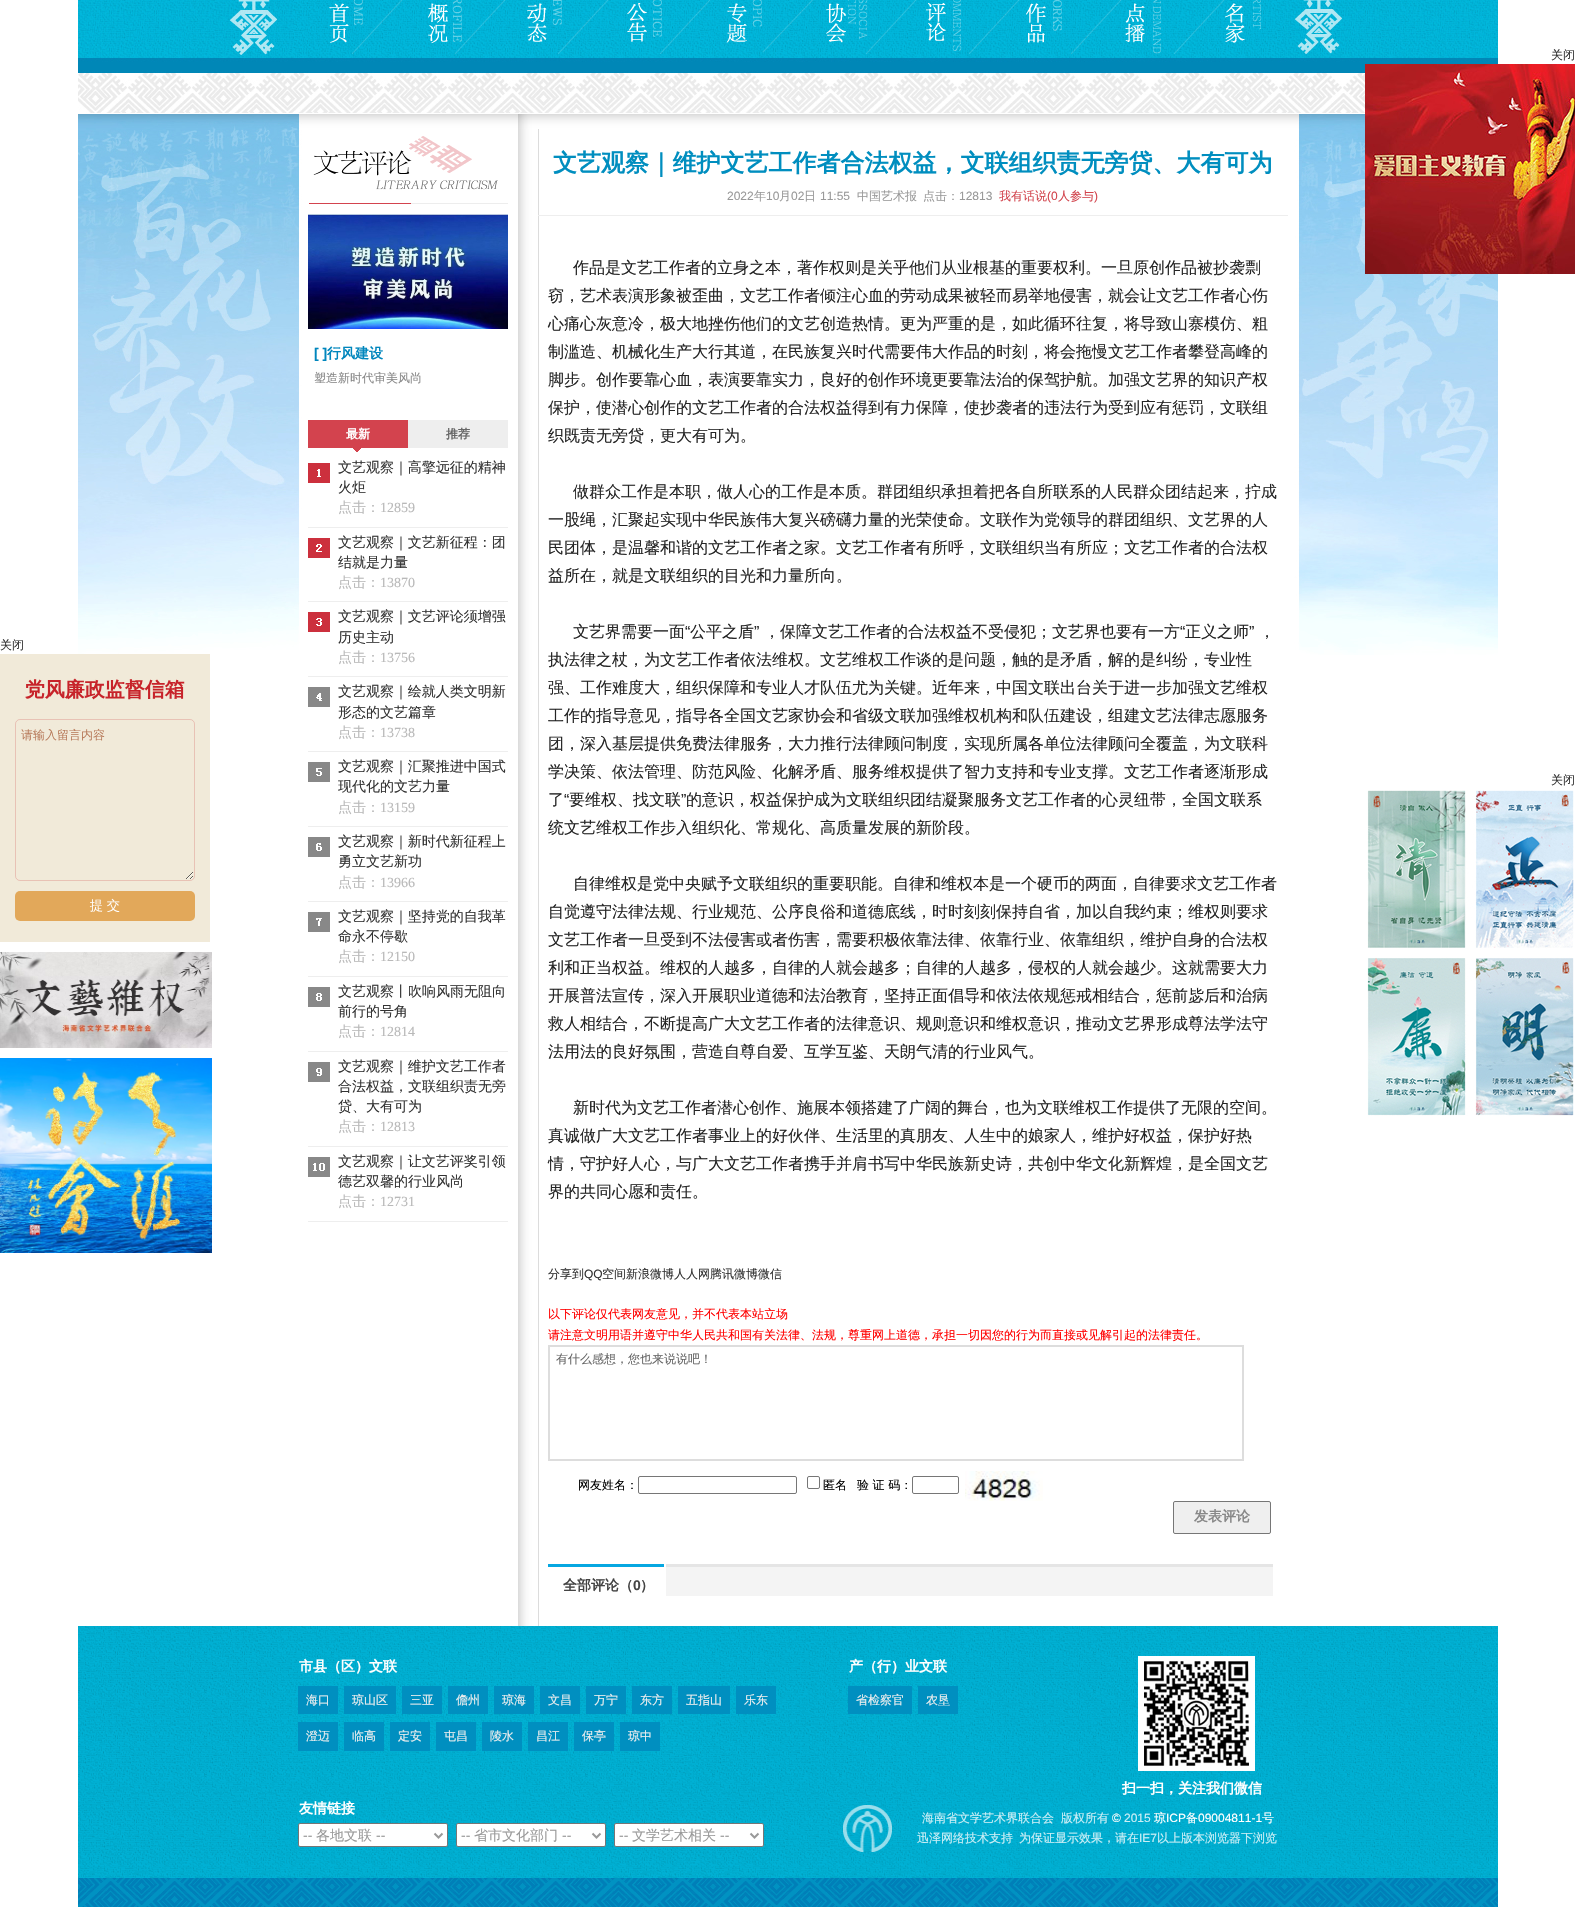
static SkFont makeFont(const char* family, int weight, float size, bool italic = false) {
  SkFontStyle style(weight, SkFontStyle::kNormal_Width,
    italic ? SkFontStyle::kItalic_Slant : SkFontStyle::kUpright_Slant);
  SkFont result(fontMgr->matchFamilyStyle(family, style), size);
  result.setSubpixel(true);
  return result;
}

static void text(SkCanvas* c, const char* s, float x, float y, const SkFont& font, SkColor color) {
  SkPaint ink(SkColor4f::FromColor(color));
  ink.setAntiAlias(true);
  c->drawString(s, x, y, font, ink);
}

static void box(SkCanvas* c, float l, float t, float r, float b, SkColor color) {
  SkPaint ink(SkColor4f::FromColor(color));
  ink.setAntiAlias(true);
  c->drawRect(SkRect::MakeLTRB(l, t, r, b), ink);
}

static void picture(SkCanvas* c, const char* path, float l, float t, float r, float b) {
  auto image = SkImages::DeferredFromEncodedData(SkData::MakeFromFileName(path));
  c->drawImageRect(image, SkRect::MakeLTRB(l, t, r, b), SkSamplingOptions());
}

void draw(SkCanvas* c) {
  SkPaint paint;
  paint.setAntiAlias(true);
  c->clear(0xffffffff);
  SkFont face1 = makeFont("WenQuanYi Zen Hei", 500, 12);
  text(c, "关闭", 1551, 59, face1, 0xff333333);
  picture(c, "img_05.png", 78, 0, 1498, 113);
  picture(c, "img_16.png", 78, 114, 1498, 655);
  picture(c, "img_01.png", 1365, 64, 1575, 274);
  text(c, "关闭", 0, 649, face1, 0xff333333);
  picture(c, "img_02.png", 0, 654, 210, 942);
  picture(c, "img_03.png", 0, 952, 212, 1048);
  picture(c, "img_04.png", 0, 1058, 212, 1253);
  picture(c, "img_06.png", 293, 0, 392, 58);
  picture(c, "img_07.png", 392, 0, 491, 58);
  picture(c, "img_08.png", 491, 0, 590, 58);
  picture(c, "img_09.png", 590, 0, 689, 58);
  picture(c, "img_10.png", 689, 0, 788, 58);
  picture(c, "img_11.png", 788, 0, 887, 58);
  picture(c, "img_12.png", 887, 0, 986, 58);
  picture(c, "img_13.png", 986, 0, 1085, 58);
  picture(c, "img_14.png", 1085, 0, 1184, 58);
  picture(c, "img_15.png", 1184, 0, 1283, 58);
  picture(c, "img_17.png", 309, 136, 508, 204);
  picture(c, "img_18.png", 308, 214, 508, 329);
  SkFont face2 = makeFont("Liberation Sans", 700, 14);
  text(c, "[ ]", 314, 358, face2, 0xff0086bd);
  SkFont face3 = makeFont("WenQuanYi Zen Hei", 700, 14);
  text(c, "行风建设", 327, 358, face3, 0xff0086bd);
  text(c, "塑造新时代审美风尚", 314, 382, face1, 0xff888888);
  picture(c, "img_19.png", 308, 420, 408, 452);
  SkFont face4 = makeFont("WenQuanYi Zen Hei", 700, 12);
  text(c, "最新", 346, 438, face4, 0xffffffff);
  box(c, 408, 420, 508, 448, 0xffeeeeee);
  text(c, "推荐", 446, 438, face4, 0xff666666);
  box(c, 308, 527, 508, 528, 0xffeeeeee);
  picture(c, "img_20.png", 308, 463, 330, 483);
  SkFont face5 = makeFont("WenQuanYi Zen Hei", 500, 14);
  text(c, "文艺观察｜高擎远征的精神", 338, 472, face5, 0xff333333);
  text(c, "火炬", 338, 492, face5, 0xff333333);
  text(c, "点击：", 338, 512, face5, 0xffb9b9b9);
  SkFont face6 = makeFont("Liberation Serif", 400, 14);
  text(c, "12859", 380, 512, face6, 0xffb9b9b9);
  box(c, 308, 601, 508, 602, 0xffeeeeee);
  picture(c, "img_21.png", 308, 538, 330, 558);
  text(c, "文艺观察｜文艺新征程：团", 338, 547, face5, 0xff333333);
  text(c, "结就是力量", 338, 567, face5, 0xff333333);
  text(c, "点击：", 338, 587, face5, 0xffb9b9b9);
  text(c, "13870", 380, 587, face6, 0xffb9b9b9);
  box(c, 308, 676, 508, 677, 0xffeeeeee);
  picture(c, "img_22.png", 308, 612, 330, 632);
  text(c, "文艺观察｜文艺评论须增强", 338, 621, face5, 0xff333333);
  text(c, "历史主动", 338, 642, face5, 0xff333333);
  text(c, "点击：", 338, 662, face5, 0xffb9b9b9);
  text(c, "13756", 380, 662, face6, 0xffb9b9b9);
  box(c, 308, 751, 508, 752, 0xffeeeeee);
  picture(c, "img_23.png", 308, 687, 330, 707);
  text(c, "文艺观察｜绘就人类文明新", 338, 696, face5, 0xff333333);
  text(c, "形态的文艺篇章", 338, 717, face5, 0xff333333);
  text(c, "点击：", 338, 737, face5, 0xffb9b9b9);
  text(c, "13738", 380, 737, face6, 0xffb9b9b9);
  box(c, 308, 826, 508, 827, 0xffeeeeee);
  picture(c, "img_24.png", 308, 762, 330, 782);
  text(c, "文艺观察｜汇聚推进中国式", 338, 771, face5, 0xff333333);
  text(c, "现代化的文艺力量", 338, 791, face5, 0xff333333);
  text(c, "点击：", 338, 812, face5, 0xffb9b9b9);
  text(c, "13159", 380, 812, face6, 0xffb9b9b9);
  box(c, 308, 901, 508, 902, 0xffeeeeee);
  picture(c, "img_25.png", 308, 837, 330, 857);
  text(c, "文艺观察｜新时代新征程上", 338, 846, face5, 0xff333333);
  text(c, "勇立文艺新功", 338, 866, face5, 0xff333333);
  text(c, "点击：", 338, 887, face5, 0xffb9b9b9);
  text(c, "13966", 380, 887, face6, 0xffb9b9b9);
  box(c, 308, 976, 508, 977, 0xffeeeeee);
  picture(c, "img_26.png", 308, 912, 330, 932);
  text(c, "文艺观察｜坚持党的自我革", 338, 921, face5, 0xff333333);
  text(c, "命永不停歇", 338, 941, face5, 0xff333333);
  text(c, "点击：", 338, 961, face5, 0xffb9b9b9);
  text(c, "12150", 380, 961, face6, 0xffb9b9b9);
  box(c, 308, 1051, 508, 1052, 0xffeeeeee);
  picture(c, "img_27.png", 308, 987, 330, 1007);
  text(c, "文艺观察丨吹响风雨无阻向", 338, 996, face5, 0xff333333);
  text(c, "前行的号角", 338, 1016, face5, 0xff333333);
  text(c, "点击：", 338, 1036, face5, 0xffb9b9b9);
  text(c, "12814", 380, 1036, face6, 0xffb9b9b9);
  box(c, 308, 1146, 508, 1147, 0xffeeeeee);
  picture(c, "img_28.png", 308, 1062, 330, 1082);
  text(c, "文艺观察｜维护文艺工作者", 338, 1071, face5, 0xff333333);
  text(c, "合法权益，文联组织责无旁", 338, 1091, face5, 0xff333333);
  text(c, "贷、大有可为", 338, 1111, face5, 0xff333333);
  text(c, "点击：", 338, 1131, face5, 0xffb9b9b9);
  text(c, "12813", 380, 1131, face6, 0xffb9b9b9);
  box(c, 308, 1221, 508, 1222, 0xffeeeeee);
  picture(c, "img_29.png", 308, 1157, 330, 1177);
  text(c, "文艺观察｜让文艺评奖引领", 338, 1166, face5, 0xff333333);
  text(c, "德艺双馨的行业风尚", 338, 1186, face5, 0xff333333);
  text(c, "点击：", 338, 1206, face5, 0xffb9b9b9);
  text(c, "12731", 380, 1206, face6, 0xffb9b9b9);
  picture(c, "img_30.png", 518, 129, 539, 1626);
  SkFont face7 = makeFont("WenQuanYi Zen Hei", 700, 24);
  text(c, "文艺观察｜维护文艺工作者合法权益，文联组织责无旁贷、大有可为", 553, 171, face7, 0xff008ebf);
  box(c, 538, 215, 1288, 216, 0xffeeeeee);
  SkFont face8 = makeFont("Liberation Sans", 400, 12);
  text(c, "2022", 727, 200, face8, 0xff999999);
  text(c, "年", 754, 200, face1, 0xff999999);
  text(c, "10", 766, 200, face8, 0xff999999);
  text(c, "月", 779, 200, face1, 0xff999999);
  text(c, "02", 791, 200, face8, 0xff999999);
  text(c, "日", 804, 200, face1, 0xff999999);
  text(c, "11:55", 820, 200, face8, 0xff999999);
  text(c, "中国艺术报", 857, 200, face1, 0xff999999);
  text(c, "点击：", 923, 200, face1, 0xff999999);
  text(c, "12813", 959, 200, face8, 0xff999999);
  text(c, "我有话说", 999, 200, face1, 0xffd2434c);
  text(c, "(0", 1047, 200, face8, 0xffd2434c);
  text(c, "人参与", 1058, 200, face1, 0xffd2434c);
  text(c, ")", 1094, 200, face8, 0xffd2434c);
  SkFont face9 = makeFont("WenQuanYi Zen Hei", 500, 16);
  text(c, "作品是文艺工作者的立身之本，著作权则是关乎他们从业根基的重要权利。一旦原创作品被抄袭剽", 573, 273, face9, 0xff252525);
  text(c, "窃，艺术表演形象被歪曲，文艺工作者倾注心血的劳动成果被轻而易举地侵害，就会让文艺工作者心伤", 548, 301, face9, 0xff252525);
  text(c, "心痛心灰意冷，极大地挫伤他们的文艺创造热情。更为严重的是，如此循环往复，将导致山寨模仿、粗", 548, 329, face9, 0xff252525);
  text(c, "制滥造、机械化生产大行其道，在民族复兴时代需要伟大作品的时刻，将会拖慢文艺工作者攀登高峰的", 548, 357, face9, 0xff252525);
  text(c, "脚步。创作要靠心血，表演要靠实力，良好的创作环境更要靠法治的保驾护航。加强文艺界的知识产权", 548, 385, face9, 0xff252525);
  text(c, "保护，使潜心创作的文艺工作者的合法权益得到有力保障，使抄袭者的违法行为受到应有惩罚，文联组", 548, 413, face9, 0xff252525);
  text(c, "织既责无旁贷，更大有可为。", 548, 441, face9, 0xff252525);
  text(c, "做群众工作是本职，做人心的工作是本质。群团组织承担着把各自所联系的人民群众团结起来，拧成", 573, 497, face9, 0xff252525);
  text(c, "一股绳，汇聚起实现中华民族伟大复兴磅礴力量的光荣使命。文联作为党领导的群团组织、文艺界的人", 548, 525, face9, 0xff252525);
  text(c, "民团体，是温馨和谐的文艺工作者之家。文艺工作者有所呼，文联组织当有所应；文艺工作者的合法权", 548, 553, face9, 0xff252525);
  text(c, "益所在，就是文联组织的目光和力量所向。", 548, 581, face9, 0xff252525);
  text(c, "文艺界需要一面", 573, 637, face9, 0xff252525);
  SkFont face10 = makeFont("Liberation Sans", 400, 16);
  text(c, "“", 685, 637, face10, 0xff252525);
  text(c, "公平之盾", 690, 637, face9, 0xff252525);
  text(c, "”", 754, 637, face10, 0xff252525);
  text(c, "，保障文艺工作者的合法权益不受侵犯；文艺界也要有一方", 764, 637, face9, 0xff252525);
  text(c, "“", 1180, 637, face10, 0xff252525);
  text(c, "正义之师", 1185, 637, face9, 0xff252525);
  text(c, "”", 1249, 637, face10, 0xff252525);
  text(c, "，", 1259, 637, face9, 0xff252525);
  text(c, "执法律之杖，为文艺工作者依法维权。文艺维权工作谈的是问题，触的是矛盾，解的是纠纷，专业性", 548, 665, face9, 0xff252525);
  text(c, "强、工作难度大，组织保障和专业人才队伍尤为关键。近年来，中国文联出台关于进一步加强文艺维权", 548, 693, face9, 0xff252525);
  text(c, "工作的指导意见，指导各全国文艺家协会和省级文联加强维权机构和队伍建设，组建文艺法律志愿服务", 548, 721, face9, 0xff252525);
  text(c, "团，深入基层提供免费法律服务，大力推行法律顾问制度，实现所属各单位法律顾问全覆盖，为文联科", 548, 749, face9, 0xff252525);
  text(c, "学决策、依法管理、防范风险、化解矛盾、服务维权提供了智力支持和专业支撑。文艺工作者逐渐形成", 548, 777, face9, 0xff252525);
  text(c, "了", 548, 805, face9, 0xff252525);
  text(c, "“", 564, 805, face10, 0xff252525);
  text(c, "要维权、找文联", 569, 805, face9, 0xff252525);
  text(c, "”", 681, 805, face10, 0xff252525);
  text(c, "的意识，权益保护成为文联组织团结凝聚服务文艺工作者的心灵纽带，全国文联系", 686, 805, face9, 0xff252525);
  text(c, "统文艺维权工作步入组织化、常规化、高质量发展的新阶段。", 548, 833, face9, 0xff252525);
  text(c, "自律维权是党中央赋予文联组织的重要职能。自律和维权本是一个硬币的两面，自律要求文艺工作者", 573, 889, face9, 0xff252525);
  text(c, "自觉遵守法律法规、行业规范、公序良俗和道德底线，时时刻刻保持自省，加以自我约束；维权则要求", 548, 917, face9, 0xff252525);
  text(c, "文艺工作者一旦受到不法侵害或者伤害，需要积极依靠法律、依靠行业、依靠组织，维护自身的合法权", 548, 945, face9, 0xff252525);
  text(c, "利和正当权益。维权的人越多，自律的人就会越多；自律的人越多，侵权的人就会越少。这就需要大力", 548, 973, face9, 0xff252525);
  text(c, "开展普法宣传，深入开展职业道德和法治教育，坚持正面倡导和依法依规惩戒相结合，惩前毖后和治病", 548, 1001, face9, 0xff252525);
  text(c, "救人相结合，不断提高广大文艺工作者的法律意识、规则意识和维权意识，推动文艺界形成尊法学法守", 548, 1029, face9, 0xff252525);
  text(c, "法用法的良好氛围，营造自尊自爱、互学互鉴、天朗气清的行业风气。", 548, 1057, face9, 0xff252525);
  text(c, "新时代为文艺工作者潜心创作、施展本领搭建了广阔的舞台，也为文联维权工作提供了无限的空间。", 573, 1113, face9, 0xff252525);
  text(c, "真诚做广大文艺工作者事业上的好伙伴、生活里的真朋友、人生中的娘家人，维护好权益，保护好热", 548, 1141, face9, 0xff252525);
  text(c, "情，守护好人心，与广大文艺工作者携手并肩书写中华民族新史诗，共创中华文化新辉煌，是全国文艺", 548, 1169, face9, 0xff252525);
  text(c, "界的共同心愿和责任。", 548, 1197, face9, 0xff252525);
  text(c, "分享到", 548, 1278, face1, 0xff333333);
  text(c, "QQ", 584, 1278, face8, 0xff333333);
  text(c, "空间新浪微博人人网腾讯微博微信", 602, 1278, face1, 0xff333333);
  text(c, "以下评论仅代表网友意见，并不代表本站立场", 548, 1318, face1, 0xffff0000);
  text(c, "请注意文明用语并遵守中华人民共和国有关法律、法规，尊重网上道德，承担一切因您的行为而直接或见解引起的法律责任。", 548, 1339, face1, 0xffff0000);
  paint.setStyle(SkPaint::kStroke_Style);
  paint.setStrokeWidth(2);
  paint.setColor(0xffdddddd);
  c->drawRect(SkRect::MakeLTRB(549, 1346, 1243, 1460), paint);
  text(c, "有什么感想，您也来说说吧！", 556, 1363, face1, 0xff666666);
  text(c, "网友姓名：", 578, 1489, face1, 0xff000000);
  paint.setStrokeWidth(1);
  paint.setColor(0xff767676);
  c->drawRoundRect(SkRect::MakeLTRB(638.5f, 1476.5f, 796.5f, 1493.5f), 1.5f, 1.5f, paint);
  c->drawRoundRect(SkRect::MakeLTRB(807.5f, 1476.5f, 819.5f, 1488.5f), 1.5f, 1.5f, paint);
  text(c, "匿名", 823, 1489, face1, 0xff000000);
  text(c, "验 证 码：", 857, 1489, face1, 0xff000000);
  c->drawRoundRect(SkRect::MakeLTRB(912.5f, 1476.5f, 958.5f, 1493.5f), 1.5f, 1.5f, paint);
  picture(c, "img_31.png", 965, 1471, 1043, 1501);
  paint.setStyle(SkPaint::kFill_Style);
  paint.setColor(0xffefefef);
  c->drawRoundRect(SkRect::MakeLTRB(1173.5f, 1501.5f, 1270.5f, 1533.5f), 1.5f, 1.5f, paint);
  paint.setStyle(SkPaint::kStroke_Style);
  paint.setColor(0xff767676);
  c->drawRoundRect(SkRect::MakeLTRB(1173.5f, 1501.5f, 1270.5f, 1533.5f), 1.5f, 1.5f, paint);
  text(c, "发表评论", 1194, 1521, face3, 0xff888888);
  picture(c, "img_32.png", 666, 1564, 1273, 1596);
  picture(c, "img_33.png", 548, 1564, 664, 1596);
  text(c, "全部评论（", 563, 1590, face3, 0xff444444);
  text(c, "0", 633, 1590, face2, 0xff444444);
  text(c, "）", 640, 1590, face3, 0xff444444);
  picture(c, "img_34.png", 78, 1626, 1498, 1907);
  text(c, "市县（区）文联", 299, 1671, face3, 0xffffffff);
  box(c, 298, 1686, 338, 1714, 0xff008fc0);
  text(c, "海口", 306, 1704, face1, 0xffefefef);
  box(c, 344, 1686, 396, 1714, 0xff008fc0);
  text(c, "琼山区", 352, 1704, face1, 0xffefefef);
  box(c, 402, 1686, 442, 1714, 0xff008fc0);
  text(c, "三亚", 410, 1704, face1, 0xffefefef);
  box(c, 448, 1686, 488, 1714, 0xff008fc0);
  text(c, "儋州", 456, 1704, face1, 0xffefefef);
  box(c, 494, 1686, 534, 1714, 0xff008fc0);
  text(c, "琼海", 502, 1704, face1, 0xffefefef);
  box(c, 540, 1686, 580, 1714, 0xff008fc0);
  text(c, "文昌", 548, 1704, face1, 0xffefefef);
  box(c, 586, 1686, 626, 1714, 0xff008fc0);
  text(c, "万宁", 594, 1704, face1, 0xffefefef);
  box(c, 632, 1686, 672, 1714, 0xff008fc0);
  text(c, "东方", 640, 1704, face1, 0xffefefef);
  box(c, 678, 1686, 730, 1714, 0xff008fc0);
  text(c, "五指山", 686, 1704, face1, 0xffefefef);
  box(c, 736, 1686, 776, 1714, 0xff008fc0);
  text(c, "乐东", 744, 1704, face1, 0xffefefef);
  box(c, 298, 1722, 338, 1751, 0xff008fc0);
  text(c, "澄迈", 306, 1740, face1, 0xffefefef);
  box(c, 344, 1722, 384, 1751, 0xff008fc0);
  text(c, "临高", 352, 1740, face1, 0xffefefef);
  box(c, 390, 1722, 430, 1751, 0xff008fc0);
  text(c, "定安", 398, 1740, face1, 0xffefefef);
  box(c, 436, 1722, 476, 1751, 0xff008fc0);
  text(c, "屯昌", 444, 1740, face1, 0xffefefef);
  box(c, 482, 1722, 522, 1751, 0xff008fc0);
  text(c, "陵水", 490, 1740, face1, 0xffefefef);
  box(c, 528, 1722, 568, 1751, 0xff008fc0);
  text(c, "昌江", 536, 1740, face1, 0xffefefef);
  box(c, 574, 1722, 614, 1751, 0xff008fc0);
  text(c, "保亭", 582, 1740, face1, 0xffefefef);
  box(c, 620, 1722, 660, 1751, 0xff008fc0);
  text(c, "琼中", 628, 1740, face1, 0xffefefef);
  text(c, "产（行）业文联", 849, 1671, face3, 0xffffffff);
  box(c, 848, 1686, 912, 1714, 0xff008fc0);
  text(c, "省检察官", 856, 1704, face1, 0xffefefef);
  box(c, 918, 1686, 958, 1714, 0xff008fc0);
  text(c, "农垦", 926, 1704, face1, 0xffefefef);
  picture(c, "img_35.png", 1138, 1656, 1255, 1771);
  text(c, "扫一扫，关注我们微信", 1122, 1793, face3, 0xffffffff);
  text(c, "友情链接", 299, 1813, face3, 0xffffffff);
  paint.setStyle(SkPaint::kFill_Style);
  paint.setColor(0xffffffff);
  c->drawRoundRect(SkRect::MakeLTRB(298.5f, 1823.5f, 447.5f, 1846.5f), 1.5f, 1.5f, paint);
  paint.setStyle(SkPaint::kStroke_Style);
  paint.setColor(0xff767676);
  c->drawRoundRect(SkRect::MakeLTRB(298.5f, 1823.5f, 447.5f, 1846.5f), 1.5f, 1.5f, paint);
  paint.setStrokeWidth(2);
  paint.setColor(0xff999999);
  c->drawPath(SkPathBuilder().moveTo(434.5f, 1833.5f).lineTo(438.5f, 1837.5f).lineTo(442.5f, 1833.5f).detach(), paint);
  SkFont face11 = makeFont("Liberation Sans", 400, 14);
  text(c, "--", 303, 1840, face11, 0xff999999);
  text(c, "各地文联", 316, 1840, face5, 0xff999999);
  text(c, "--", 376, 1840, face11, 0xff999999);
  paint.setStyle(SkPaint::kFill_Style);
  paint.setColor(0xffffffff);
  c->drawRoundRect(SkRect::MakeLTRB(456.5f, 1823.5f, 605.5f, 1846.5f), 1.5f, 1.5f, paint);
  paint.setStyle(SkPaint::kStroke_Style);
  paint.setStrokeWidth(1);
  paint.setColor(0xff767676);
  c->drawRoundRect(SkRect::MakeLTRB(456.5f, 1823.5f, 605.5f, 1846.5f), 1.5f, 1.5f, paint);
  paint.setStrokeWidth(2);
  paint.setColor(0xff999999);
  c->drawPath(SkPathBuilder().moveTo(592.5f, 1833.5f).lineTo(596.5f, 1837.5f).lineTo(600.5f, 1833.5f).detach(), paint);
  text(c, "--", 461, 1840, face11, 0xff999999);
  text(c, "省市文化部门", 474, 1840, face5, 0xff999999);
  text(c, "--", 562, 1840, face11, 0xff999999);
  paint.setStyle(SkPaint::kFill_Style);
  paint.setColor(0xffffffff);
  c->drawRoundRect(SkRect::MakeLTRB(614.5f, 1823.5f, 763.5f, 1846.5f), 1.5f, 1.5f, paint);
  paint.setStyle(SkPaint::kStroke_Style);
  paint.setStrokeWidth(1);
  paint.setColor(0xff767676);
  c->drawRoundRect(SkRect::MakeLTRB(614.5f, 1823.5f, 763.5f, 1846.5f), 1.5f, 1.5f, paint);
  paint.setStrokeWidth(2);
  paint.setColor(0xff999999);
  c->drawPath(SkPathBuilder().moveTo(750.5f, 1833.5f).lineTo(754.5f, 1837.5f).lineTo(758.5f, 1833.5f).detach(), paint);
  text(c, "--", 619, 1840, face11, 0xff999999);
  text(c, "文学艺术相关", 632, 1840, face5, 0xff999999);
  text(c, "--", 720, 1840, face11, 0xff999999);
  picture(c, "img_36.png", 843, 1805, 892, 1852);
  text(c, "海南省文学艺术界联合会", 922, 1822, face1, 0xffcceff6);
  text(c, "版权所有", 1061, 1822, face1, 0xffcceff6);
  text(c, "©", 1112, 1822, face8, 0xffffffff);
  text(c, "2015", 1124, 1822, face8, 0xffcceff6);
  text(c, "琼", 1154, 1822, face1, 0xffffffff);
  text(c, "ICP", 1166, 1822, face8, 0xffffffff);
  text(c, "备", 1186, 1822, face1, 0xffffffff);
  text(c, "09004811-1", 1198, 1822, face8, 0xffffffff);
  text(c, "号", 1262, 1822, face1, 0xffffffff);
  text(c, "迅泽网络技术支持", 917, 1842, face1, 0xffcceff6);
  text(c, "为保证显示效果，请在", 1019, 1842, face1, 0xffcceff6);
  text(c, "IE7", 1139, 1842, face8, 0xffcceff6);
  text(c, "以上版本浏览器下浏览", 1157, 1842, face1, 0xffcceff6);
  text(c, "关闭", 1551, 784, face1, 0xff333333);
  picture(c, "img_37.png", 1367, 790, 1574, 1116);
}
